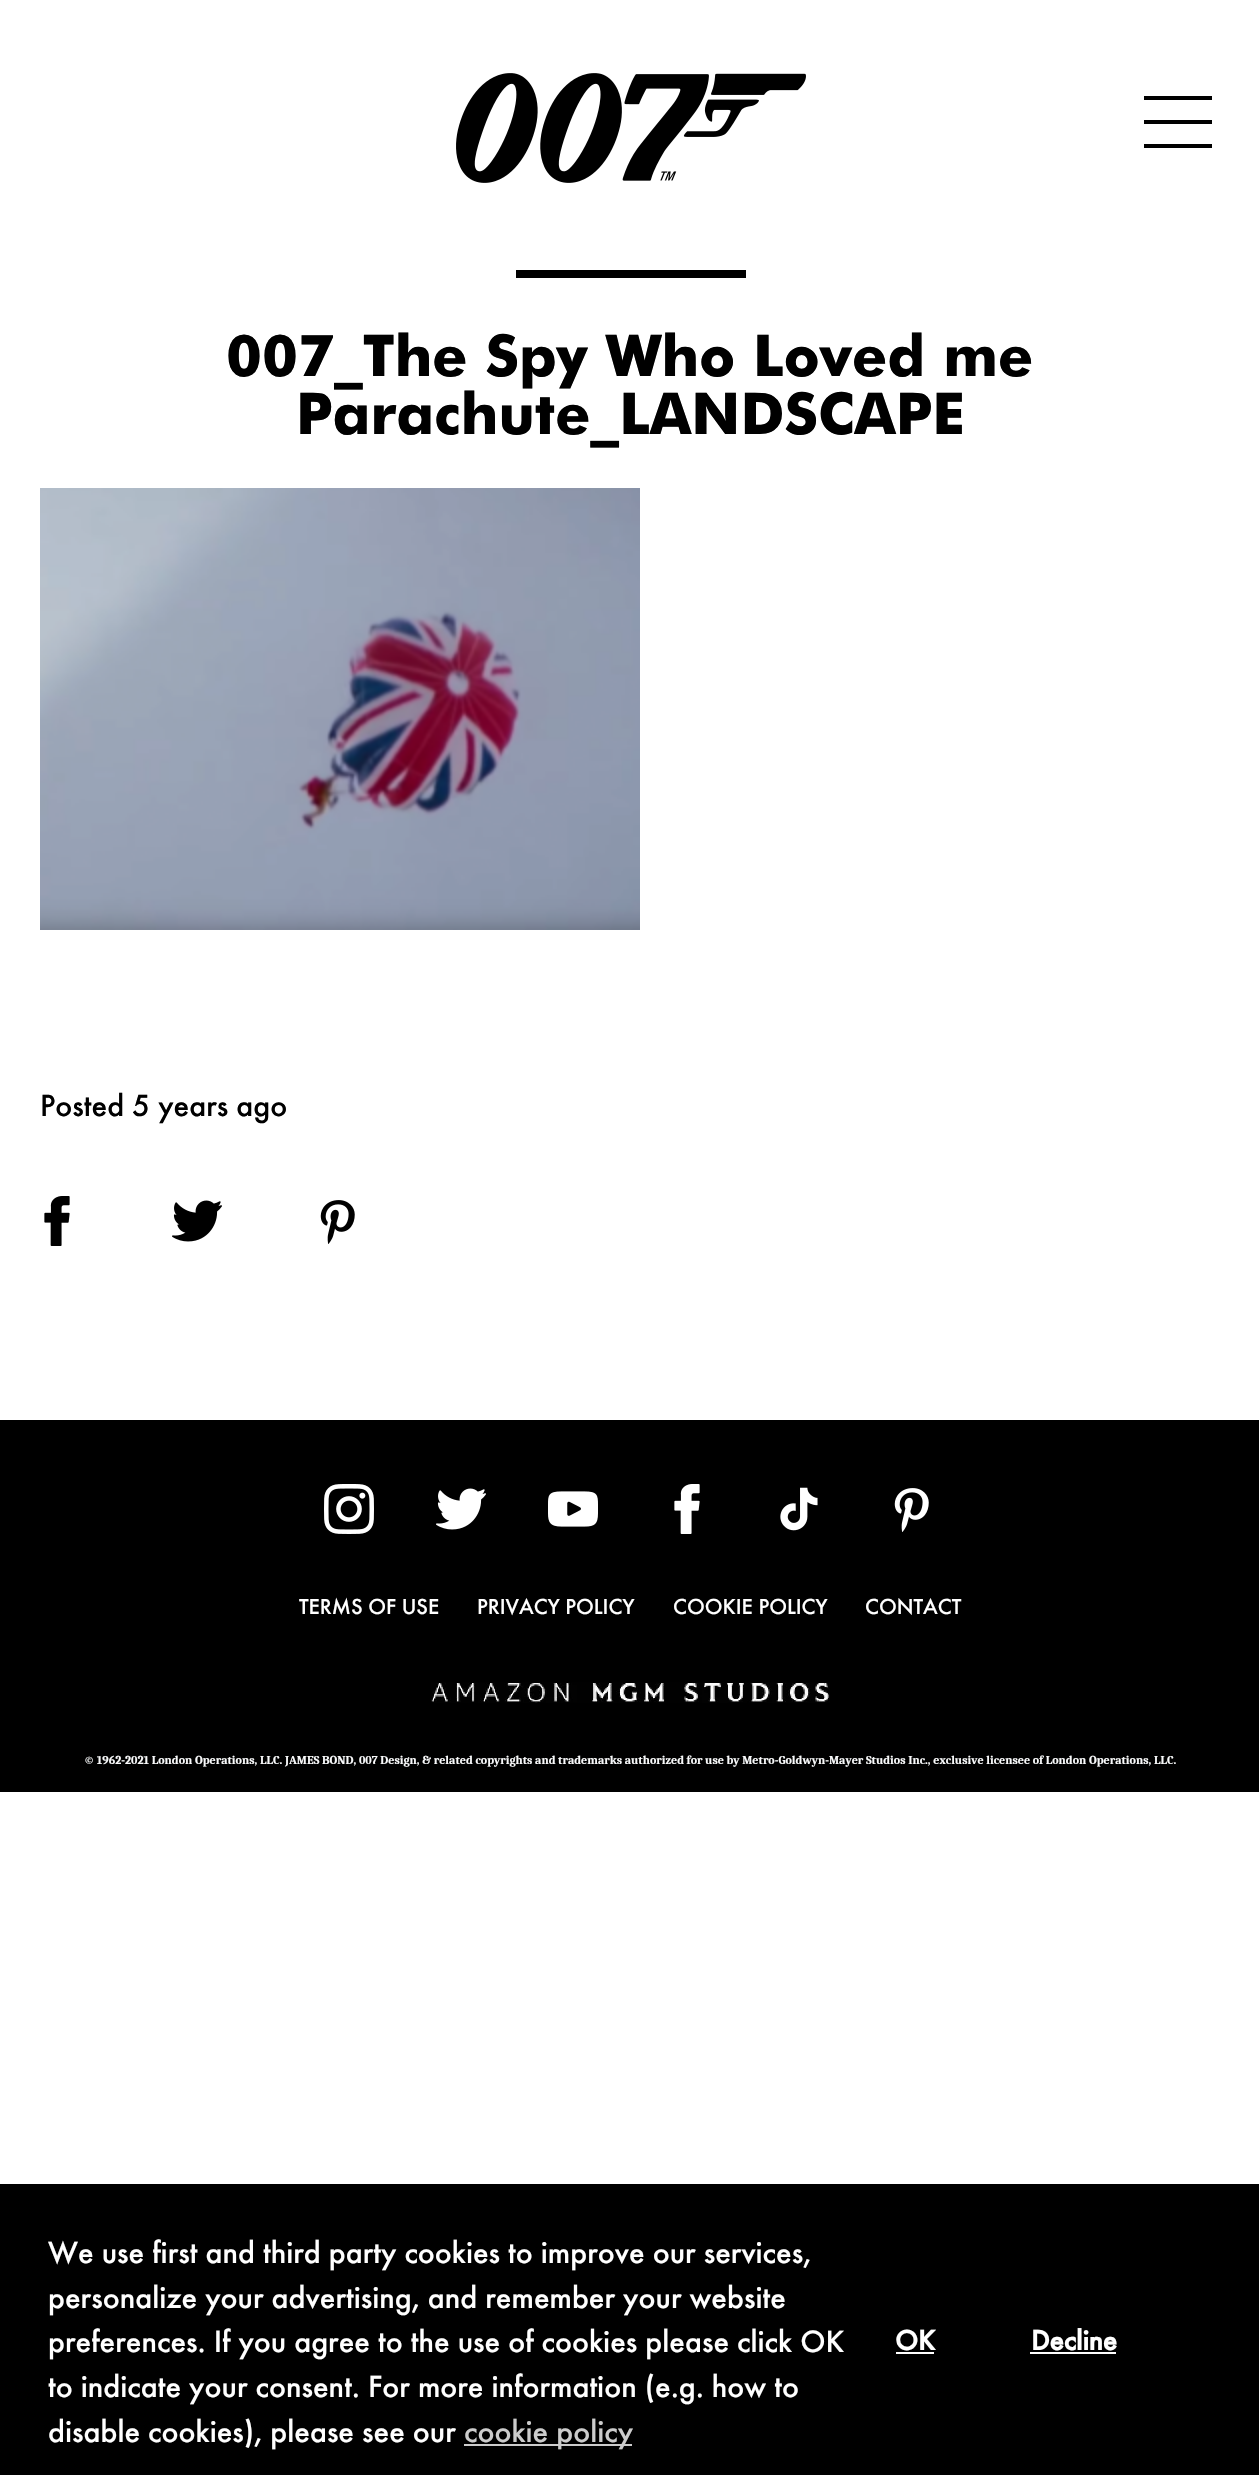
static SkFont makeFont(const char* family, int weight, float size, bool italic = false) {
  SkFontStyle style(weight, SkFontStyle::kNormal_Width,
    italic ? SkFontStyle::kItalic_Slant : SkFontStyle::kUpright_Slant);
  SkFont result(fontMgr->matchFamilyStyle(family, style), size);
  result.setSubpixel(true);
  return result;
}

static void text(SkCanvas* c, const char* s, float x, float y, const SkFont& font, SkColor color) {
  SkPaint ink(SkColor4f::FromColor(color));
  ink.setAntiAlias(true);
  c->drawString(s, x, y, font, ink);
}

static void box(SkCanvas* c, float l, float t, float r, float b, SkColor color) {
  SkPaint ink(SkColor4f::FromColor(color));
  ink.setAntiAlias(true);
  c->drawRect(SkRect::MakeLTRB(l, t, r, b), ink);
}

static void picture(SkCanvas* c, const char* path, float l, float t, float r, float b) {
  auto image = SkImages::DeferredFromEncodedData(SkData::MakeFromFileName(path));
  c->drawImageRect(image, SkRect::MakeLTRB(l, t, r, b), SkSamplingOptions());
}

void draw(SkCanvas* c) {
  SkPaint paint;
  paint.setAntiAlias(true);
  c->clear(0xffffffff);
  picture(c, "img_01.png", 456, 73, 806, 183);
  box(c, 1144, 120, 1212, 124, 0xff000000);
  box(c, 1144, 96, 1212, 100, 0xff000000);
  box(c, 1144, 144, 1212, 148, 0xff000000);
  box(c, 516, 270, 746, 278, 0xff000000);
  SkFont face1 = makeFont("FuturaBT", 900, 57.6f);
  text(c, "007_The Spy Who Loved me", 226, 376, face1, 0xff000000);
  text(c, "Parachute_LANDSCAPE", 296, 434, face1, 0xff000000);
  picture(c, "img_02.png", 40, 488, 640, 930);
  SkFont face2 = makeFont("Futura", 500, 32);
  text(c, "Posted 5 years ago", 40, 1116, face2, 0xff000000);
  picture(c, "img_03.png", 44, 1196, 70, 1246);
  picture(c, "img_04.png", 172, 1200, 222, 1242);
  picture(c, "img_05.png", 320, 1200, 355, 1244);
  box(c, 0, 1420, 1259, 1792, 0xff000000);
  picture(c, "img_06.png", 324, 1484, 374, 1534);
  picture(c, "img_07.png", 436, 1488, 486, 1530);
  picture(c, "img_08.png", 548, 1491, 598, 1527);
  picture(c, "img_09.png", 674, 1484, 700, 1534);
  picture(c, "img_10.png", 780, 1487, 818, 1531);
  picture(c, "img_11.png", 894, 1488, 929, 1532);
  SkFont face3 = makeFont("Futura", 500, 22.5f);
  text(c, "TERMS OF USE", 299, 1614, face3, 0xffffffff);
  text(c, "PRIVACY POLICY", 477, 1614, face3, 0xffffffff);
  text(c, "COOKIE POLICY", 673, 1614, face3, 0xffffffff);
  text(c, "CONTACT", 865, 1614, face3, 0xffffffff);
  picture(c, "img_12.png", 431, 1682, 830, 1703);
  SkFont face4 = makeFont("Caladea", 700, 12);
  text(c, "© 1962-2021 London Operations, LLC. JAMES BOND, 007 Design, & related copyrights and trademarks authorized for use by Metro-Goldwyn-Mayer Studios Inc., exclusive licensee of London Operations, LLC.", 84, 1764, face4, 0xfff8f9fa);
  box(c, 0, 2184, 1259, 2475, 0xff000000);
  text(c, "We use first and third party cookies to improve our services,", 48, 2263, face2, 0xffffffff);
  text(c, "personalize your advertising, and remember your website", 48, 2308, face2, 0xffffffff);
  text(c, "preferences. If you agree to the use of cookies please click OK", 48, 2352, face2, 0xffffffff);
  text(c, "to indicate your consent. For more information (e.g. how to", 48, 2397, face2, 0xffffffff);
  text(c, "disable cookies), please see our", 48, 2442, face2, 0xffffffff);
  box(c, 464, 2444, 632, 2446, 0xffcccccc);
  text(c, "cookie policy", 464, 2442, face2, 0xffcccccc);
  SkFont face5 = makeFont("Futura", 700, 29);
  text(c, "OK", 895, 2350, face5, 0xffffffff);
  box(c, 896, 2352, 934, 2354, 0xffffffff);
  text(c, "Decline", 1031, 2350, face5, 0xffffffff);
  box(c, 1030, 2352, 1116, 2354, 0xffffffff);
}
